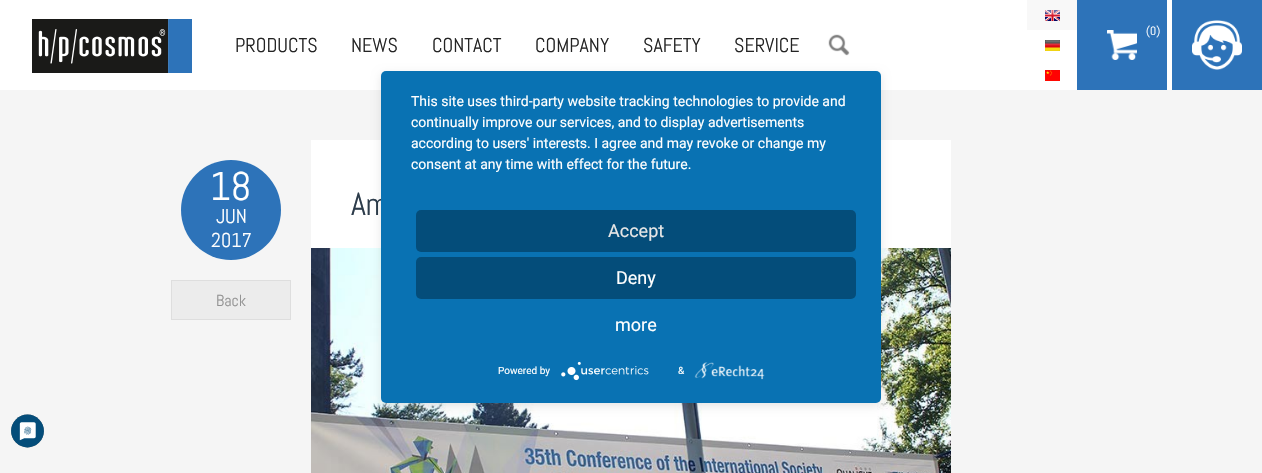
static SkFont makeFont(const char* family, int weight, float size, bool italic = false) {
  SkFontStyle style(weight, SkFontStyle::kNormal_Width,
    italic ? SkFontStyle::kItalic_Slant : SkFontStyle::kUpright_Slant);
  SkFont result(fontMgr->matchFamilyStyle(family, style), size);
  result.setSubpixel(true);
  return result;
}

static void text(SkCanvas* c, const char* s, float x, float y, const SkFont& font, SkColor color) {
  SkPaint ink(SkColor4f::FromColor(color));
  ink.setAntiAlias(true);
  c->drawString(s, x, y, font, ink);
}

static void box(SkCanvas* c, float l, float t, float r, float b, SkColor color) {
  SkPaint ink(SkColor4f::FromColor(color));
  ink.setAntiAlias(true);
  c->drawRect(SkRect::MakeLTRB(l, t, r, b), ink);
}

static void roundBox(SkCanvas* c, float l, float t, float r, float b, float radius, SkColor color) {
  SkPaint ink(SkColor4f::FromColor(color));
  ink.setAntiAlias(true);
  c->drawRoundRect(SkRect::MakeLTRB(l, t, r, b), radius, radius, ink);
}

static void picture(SkCanvas* c, const char* path, float l, float t, float r, float b) {
  auto image = SkImages::DeferredFromEncodedData(SkData::MakeFromFileName(path));
  c->drawImageRect(image, SkRect::MakeLTRB(l, t, r, b), SkSamplingOptions());
}

void draw(SkCanvas* c) {
  SkPaint paint;
  paint.setAntiAlias(true);
  c->clear(0xfff5f5f5);
  box(c, 0, 0, 1172, 90, 0xffffffff);
  picture(c, "img_01.png", 32, 19, 192, 73);
  box(c, 1077, 0, 1167, 90, 0xff2d73b9);
  picture(c, "img_02.png", 1107, 30, 1137, 60);
  SkFont face1 = makeFont("Abel", 400, 12);
  text(c, "(0)", 1146, 35, face1, 0xffffffff);
  box(c, 1172, 0, 1262, 90, 0xff2d73b9);
  picture(c, "img_03.png", 1192, 20, 1242, 70);
  SkFont face2 = makeFont("Abel", 400, 20);
  text(c, "PRODUCTS", 235, 52, face2, 0xff242424);
  text(c, "NEWS", 351, 52, face2, 0xff242424);
  text(c, "CONTACT", 432, 52, face2, 0xff242424);
  text(c, "COMPANY", 535, 52, face2, 0xff242424);
  text(c, "SAFETY", 643, 52, face2, 0xff242424);
  text(c, "SERVICE", 734, 52, face2, 0xff242424);
  picture(c, "img_04.png", 828, 34, 850, 56);
  box(c, 1027, 0, 1077, 30, 0xfff8f8f8);
  picture(c, "img_05.png", 1045, 10, 1060, 21);
  picture(c, "img_06.png", 1045, 40, 1060, 51);
  picture(c, "img_07.png", 1045, 70, 1060, 81);
  box(c, 311, 140, 951, 248, 0xffffffff);
  paint.setColor(0xff2d73b9);
  c->drawCircle(231, 210, 50, paint);
  SkFont face3 = makeFont("Abel", 400, 40);
  text(c, "18", 210, 200, face3, 0xffffffff);
  text(c, "JUN", 216, 223, face2, 0xffffffff);
  text(c, "2017", 211, 247, face2, 0xffffffff);
  paint.setColor(0xffececec);
  c->drawRect(SkRect::MakeLTRB(171.5f, 280.5f, 290.5f, 319.5f), paint);
  paint.setStyle(SkPaint::kStroke_Style);
  paint.setStrokeWidth(1);
  paint.setColor(0xffdedede);
  c->drawRect(SkRect::MakeLTRB(171.5f, 280.5f, 290.5f, 319.5f), paint);
  SkFont face4 = makeFont("Abel", 400, 16);
  text(c, "Back", 216, 306, face4, 0xff929292);
  SkFont face5 = makeFont("Abel", 400, 32);
  text(c, "Am", 351, 215, face5, 0xff2d3c4b);
  picture(c, "img_08.png", 311, 248, 951, 473);
  paint.setStyle(SkPaint::kFill_Style);
  paint.setColor(0x1a000000);
  paint.setMaskFilter(SkMaskFilter::MakeBlur(kNormal_SkBlurStyle, 5));
  c->drawRoundRect(SkRect::MakeLTRB(381, 74, 881, 406), 5, 5, paint);
  paint.setMaskFilter(nullptr);
  roundBox(c, 381, 71, 881, 403, 5, 0xff0972b3);
  SkFont face6 = makeFont("Roboto", 400, 14);
  text(c, "This site uses third-party website tracking technologies to provide and", 411, 106, face6, 0xffffffff);
  text(c, "continually improve our services, and to display advertisements", 411, 127, face6, 0xffffffff);
  text(c, "according to users' interests. I agree and may revoke or change my", 411, 148, face6, 0xffffffff);
  text(c, "consent at any time with effect for the future.", 411, 169, face6, 0xffffffff);
  roundBox(c, 416, 210, 856, 252, 5, 0xff044d7a);
  SkFont face7 = makeFont("Roboto", 400, 18);
  text(c, "Accept", 608, 237, face7, 0xffe6e6e6);
  roundBox(c, 416, 257, 856, 299, 5, 0xff044d7a);
  text(c, "Deny", 616, 284, face7, 0xffffffff);
  text(c, "more", 615, 331, face7, 0xffffffff);
  SkFont face8 = makeFont("Roboto", 400, 10);
  text(c, "Powered by", 498, 374, face8, 0xffffffff);
  picture(c, "img_09.png", 561, 361, 649, 381);
  text(c, "&", 678, 374, face8, 0xffffffff);
  picture(c, "img_10.png", 694, 362, 765, 380);
  picture(c, "img_11.png", 11, 414, 44, 448);
}
